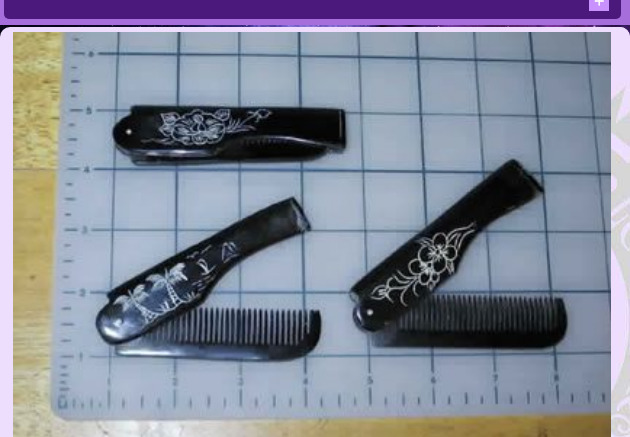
static SkFont makeFont(const char* family, int weight, float size, bool italic = false) {
  SkFontStyle style(weight, SkFontStyle::kNormal_Width,
    italic ? SkFontStyle::kItalic_Slant : SkFontStyle::kUpright_Slant);
  SkFont result(fontMgr->matchFamilyStyle(family, style), size);
  result.setSubpixel(true);
  return result;
}

static void text(SkCanvas* c, const char* s, float x, float y, const SkFont& font, SkColor color) {
  SkPaint ink(SkColor4f::FromColor(color));
  ink.setAntiAlias(true);
  c->drawString(s, x, y, font, ink);
}

static void box(SkCanvas* c, float l, float t, float r, float b, SkColor color) {
  SkPaint ink(SkColor4f::FromColor(color));
  ink.setAntiAlias(true);
  c->drawRect(SkRect::MakeLTRB(l, t, r, b), ink);
}

static void roundBox(SkCanvas* c, float l, float t, float r, float b, float radius, SkColor color) {
  SkPaint ink(SkColor4f::FromColor(color));
  ink.setAntiAlias(true);
  c->drawRoundRect(SkRect::MakeLTRB(l, t, r, b), radius, radius, ink);
}

static void picture(SkCanvas* c, const char* path, float l, float t, float r, float b) {
  auto image = SkImages::DeferredFromEncodedData(SkData::MakeFromFileName(path));
  c->drawImageRect(image, SkRect::MakeLTRB(l, t, r, b), SkSamplingOptions());
}

void draw(SkCanvas* c) {
  SkPaint paint;
  paint.setAntiAlias(true);
  c->clear(0xffffffff);
  picture(c, "img_01.png", 0, 25, 630, 37);
  box(c, 0, 0, 630, 25, 0xffa66eda);
  roundBox(c, 4, -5, 621, 19, 5, 0xff4b187c);
  box(c, 589, 0, 609, 11, 0xffc991fd);
  SkFont face1 = makeFont("Liberation Sans", 400, 18);
  text(c, "+", 594, 7, face1, 0xffffffff);
  roundBox(c, 0, 27, 630, 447, 10, 0xffeedefd);
  picture(c, "img_02.png", 199, 27, 630, 437);
  picture(c, "img_03.png", 13, 32, 611, 437);
}
